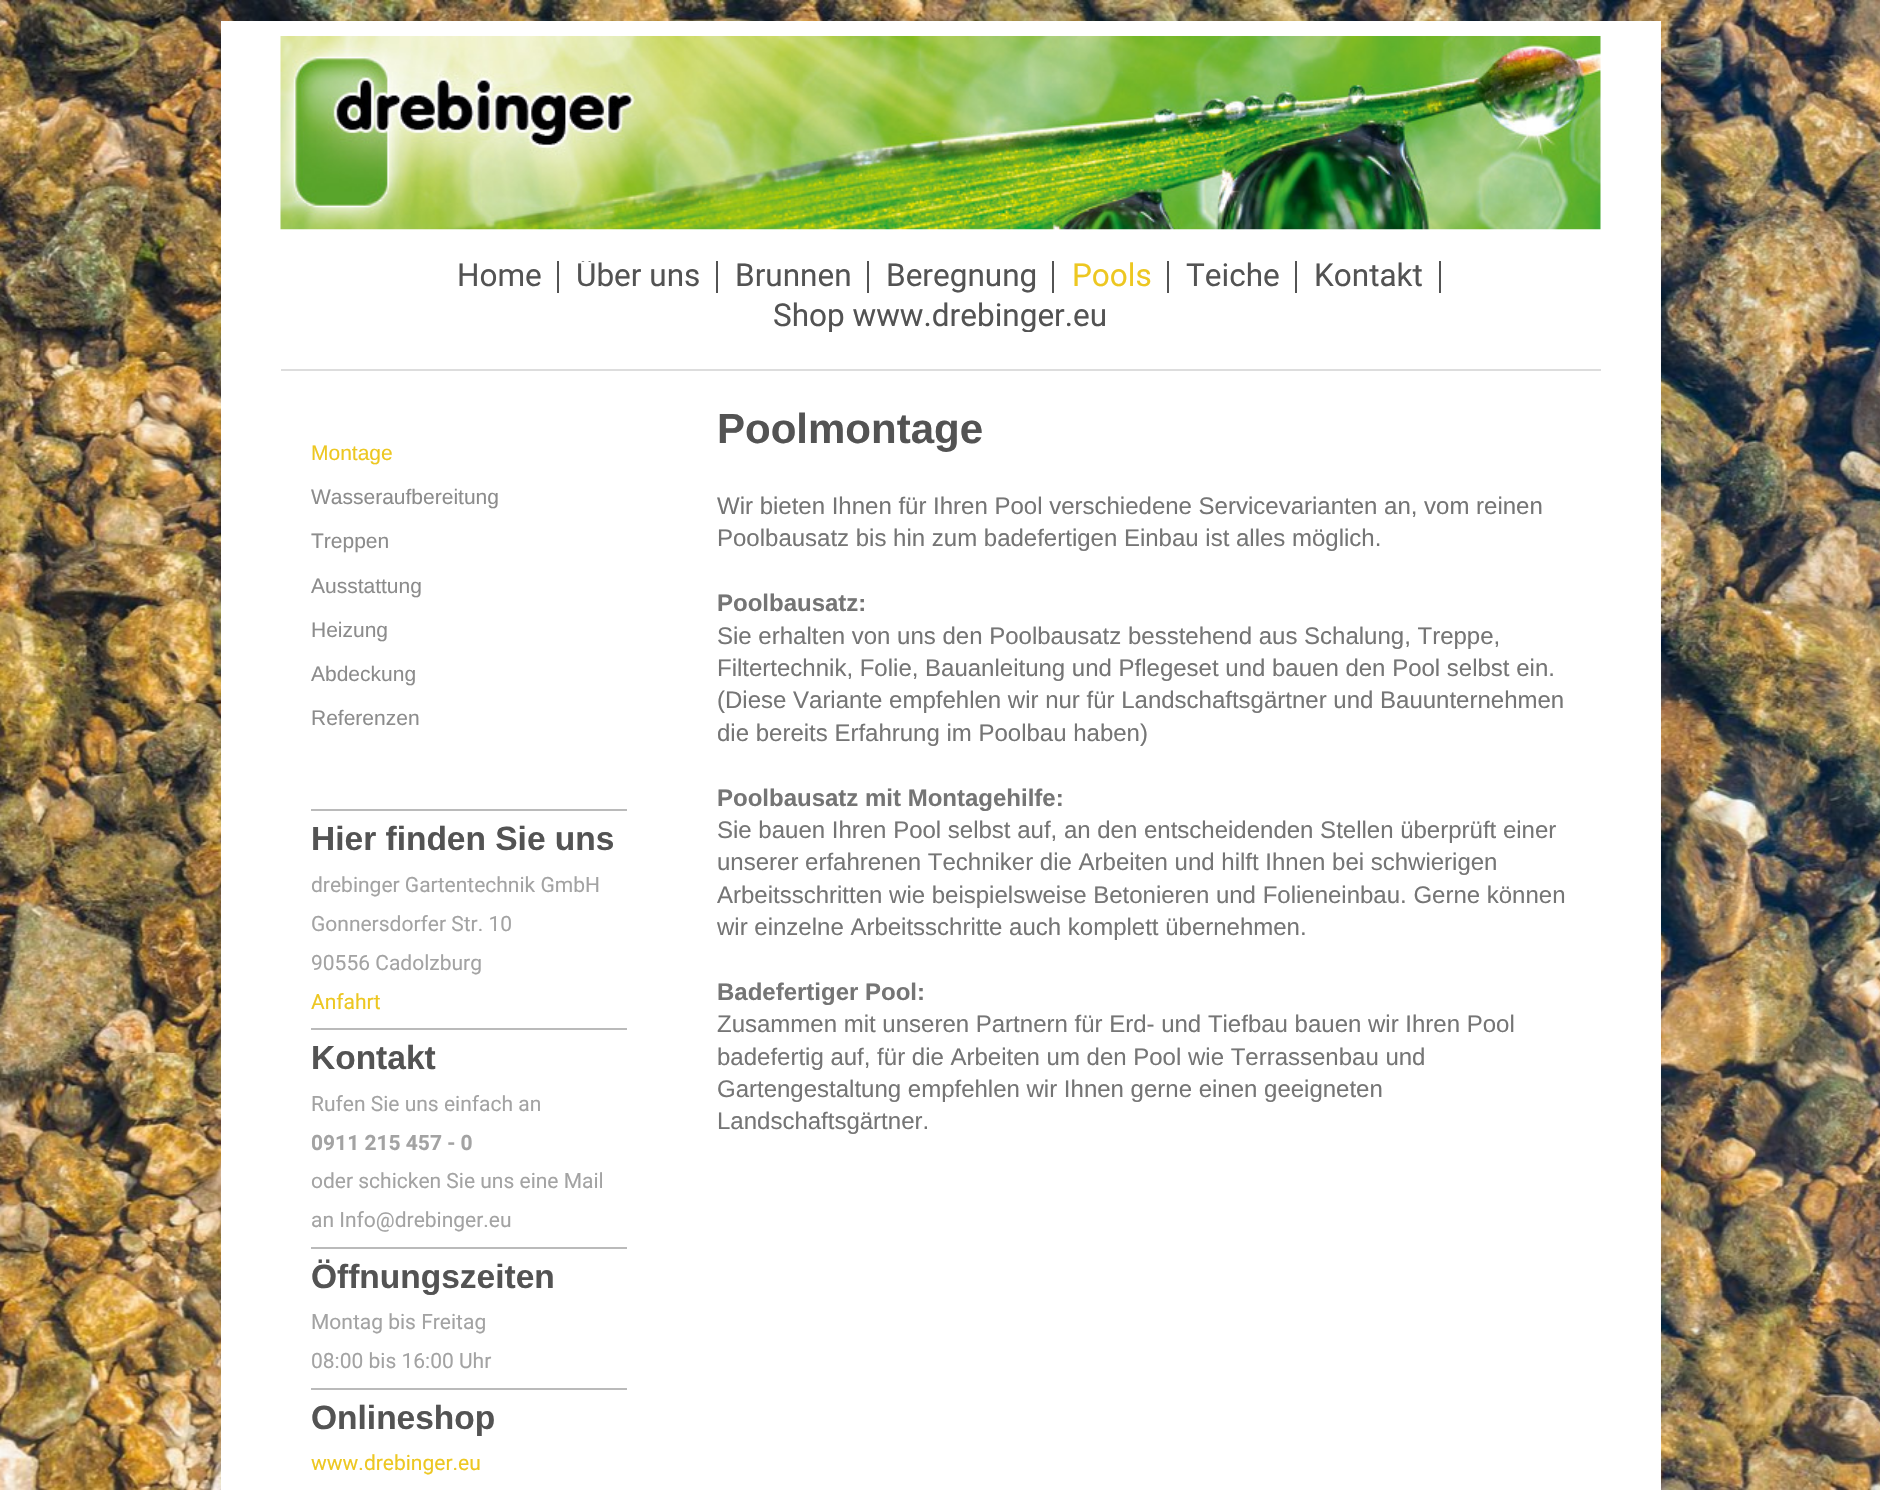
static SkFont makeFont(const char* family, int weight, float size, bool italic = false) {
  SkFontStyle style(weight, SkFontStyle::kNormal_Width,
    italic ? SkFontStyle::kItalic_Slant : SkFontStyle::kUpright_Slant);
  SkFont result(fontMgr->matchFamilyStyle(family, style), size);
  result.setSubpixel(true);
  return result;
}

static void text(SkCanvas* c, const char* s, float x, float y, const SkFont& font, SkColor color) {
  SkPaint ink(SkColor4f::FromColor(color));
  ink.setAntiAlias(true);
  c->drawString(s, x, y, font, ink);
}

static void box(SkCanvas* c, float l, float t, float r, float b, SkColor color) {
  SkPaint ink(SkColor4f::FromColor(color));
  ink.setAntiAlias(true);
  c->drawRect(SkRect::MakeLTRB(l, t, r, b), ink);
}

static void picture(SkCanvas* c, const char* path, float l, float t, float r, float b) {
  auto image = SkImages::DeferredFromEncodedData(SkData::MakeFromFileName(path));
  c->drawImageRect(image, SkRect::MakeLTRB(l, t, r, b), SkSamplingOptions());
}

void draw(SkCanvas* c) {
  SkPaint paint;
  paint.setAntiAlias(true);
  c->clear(0xffffffff);
  picture(c, "img_01.png", 0, 0, 1880, 1490);
  box(c, 221, 21, 1661, 1490, 0xffffffff);
  picture(c, "img_02.png", 280, 36, 1601, 230);
  box(c, 281, 369, 1601, 371, 0xffdddddd);
  box(c, 557, 261, 559, 293, 0xff535353);
  SkFont face1 = makeFont("Roboto", 400, 31.5f);
  text(c, "Home", 457, 286, face1, 0xff535353);
  box(c, 716, 261, 718, 293, 0xff535353);
  c->save();
  c->clipRect(SkRect::MakeLTRB(561, 261, 716, 293));
  text(c, "Über uns", 576, 286, face1, 0xff535353);
  c->restore();
  box(c, 867, 261, 869, 293, 0xff535353);
  text(c, "Brunnen", 735, 286, face1, 0xff535353);
  box(c, 1052, 261, 1054, 293, 0xff535353);
  text(c, "Beregnung", 886, 286, face1, 0xff535353);
  box(c, 1167, 261, 1169, 293, 0xff535353);
  text(c, "Pools", 1072, 286, face1, 0xffedc721);
  box(c, 1295, 261, 1297, 293, 0xff535353);
  text(c, "Teiche", 1186, 286, face1, 0xff535353);
  box(c, 1439, 261, 1441, 293, 0xff535353);
  text(c, "Kontakt", 1314, 286, face1, 0xff535353);
  c->save();
  c->clipRect(SkRect::MakeLTRB(759, 300, 1122, 332));
  text(c, "Shop www.drebinger.eu", 773, 326, face1, 0xff535353);
  c->restore();
  SkFont face2 = makeFont("Liberation Sans", 400, 21);
  text(c, "Montage", 311, 460, face2, 0xffedc721);
  text(c, "Wasseraufbereitung", 311, 504, face2, 0xff8c8c8c);
  text(c, "Treppen", 311, 548, face2, 0xff8c8c8c);
  text(c, "Ausstattung", 311, 593, face2, 0xff8c8c8c);
  text(c, "Heizung", 311, 637, face2, 0xff8c8c8c);
  text(c, "Abdeckung", 311, 681, face2, 0xff8c8c8c);
  text(c, "Referenzen", 311, 725, face2, 0xff8c8c8c);
  box(c, 311, 809, 627, 811, 0xffbababa);
  SkFont face3 = makeFont("Liberation Sans", 700, 33.5f);
  text(c, "Hier finden Sie uns", 311, 850, face3, 0xff535353);
  SkFont face4 = makeFont("Roboto", 400, 21);
  text(c, "drebinger Gartentechnik GmbH", 311, 892, face4, 0xffa3a3a3);
  text(c, "Gonnersdorfer Str. 10", 311, 931, face4, 0xffa3a3a3);
  text(c, "90556 Cadolzburg", 311, 970, face4, 0xffa3a3a3);
  text(c, "Anfahrt", 311, 1009, face4, 0xffedc721);
  box(c, 311, 1028, 627, 1030, 0xffbababa);
  text(c, "Kontakt", 311, 1069, face3, 0xff535353);
  text(c, "Rufen Sie uns einfach an", 311, 1111, face4, 0xffa3a3a3);
  SkFont face5 = makeFont("Roboto", 700, 21);
  text(c, "0911 215 457 - 0", 311, 1150, face5, 0xffa3a3a3);
  text(c, "oder schicken Sie uns eine Mail", 311, 1188, face4, 0xffa3a3a3);
  text(c, "an Info@drebinger.eu", 311, 1227, face4, 0xffa3a3a3);
  box(c, 311, 1247, 627, 1249, 0xffbababa);
  text(c, "Öffnungszeiten", 311, 1288, face3, 0xff535353);
  text(c, "Montag bis Freitag", 311, 1329, face4, 0xffa3a3a3);
  text(c, "08:00 bis 16:00 Uhr", 311, 1368, face4, 0xffa3a3a3);
  box(c, 311, 1388, 627, 1390, 0xffbababa);
  text(c, "Onlineshop", 311, 1429, face3, 0xff535353);
  text(c, "www.drebinger.eu", 311, 1470, face4, 0xffedc721);
  SkFont face6 = makeFont("Liberation Sans", 700, 42);
  text(c, "Poolmontage", 717, 443, face6, 0xff535353);
  SkFont face7 = makeFont("Liberation Sans", 400, 24);
  text(c, "Wir bieten Ihnen für Ihren Pool verschiedene Servicevarianten an, vom reinen", 717, 514, face7, 0xff757575);
  text(c, "Poolbausatz bis hin zum badefertigen Einbau ist alles möglich.", 717, 546, face7, 0xff757575);
  SkFont face8 = makeFont("Liberation Sans", 700, 24);
  text(c, "Poolbausatz:", 717, 611, face8, 0xff757575);
  text(c, "Sie erhalten von uns den Poolbausatz besstehend aus Schalung, Treppe,", 717, 644, face7, 0xff757575);
  text(c, "Filtertechnik, Folie, Bauanleitung und Pflegeset und bauen den Pool selbst ein.", 717, 676, face7, 0xff757575);
  text(c, "(Diese Variante empfehlen wir nur für Landschaftsgärtner und Bauunternehmen", 717, 708, face7, 0xff757575);
  text(c, "die bereits Erfahrung im Poolbau haben)", 717, 741, face7, 0xff757575);
  text(c, "Poolbausatz mit Montagehilfe:", 717, 806, face8, 0xff757575);
  text(c, "Sie bauen Ihren Pool selbst auf, an den entscheidenden Stellen überprüft einer", 717, 838, face7, 0xff757575);
  text(c, "unserer erfahrenen Techniker die Arbeiten und hilft Ihnen bei schwierigen", 717, 870, face7, 0xff757575);
  text(c, "Arbeitsschritten wie beispielsweise Betonieren und Folieneinbau. Gerne können", 717, 903, face7, 0xff757575);
  text(c, "wir einzelne Arbeitsschritte auch komplett übernehmen.", 717, 935, face7, 0xff757575);
  text(c, "Badefertiger Pool:", 717, 1000, face8, 0xff757575);
  text(c, "Zusammen mit unseren Partnern für Erd- und Tiefbau bauen wir Ihren Pool", 717, 1032, face7, 0xff757575);
  text(c, "badefertig auf, für die Arbeiten um den Pool wie Terrassenbau und", 717, 1065, face7, 0xff757575);
  text(c, "Gartengestaltung empfehlen wir Ihnen gerne einen geeigneten", 717, 1097, face7, 0xff757575);
  text(c, "Landschaftsgärtner.", 717, 1129, face7, 0xff757575);
}
